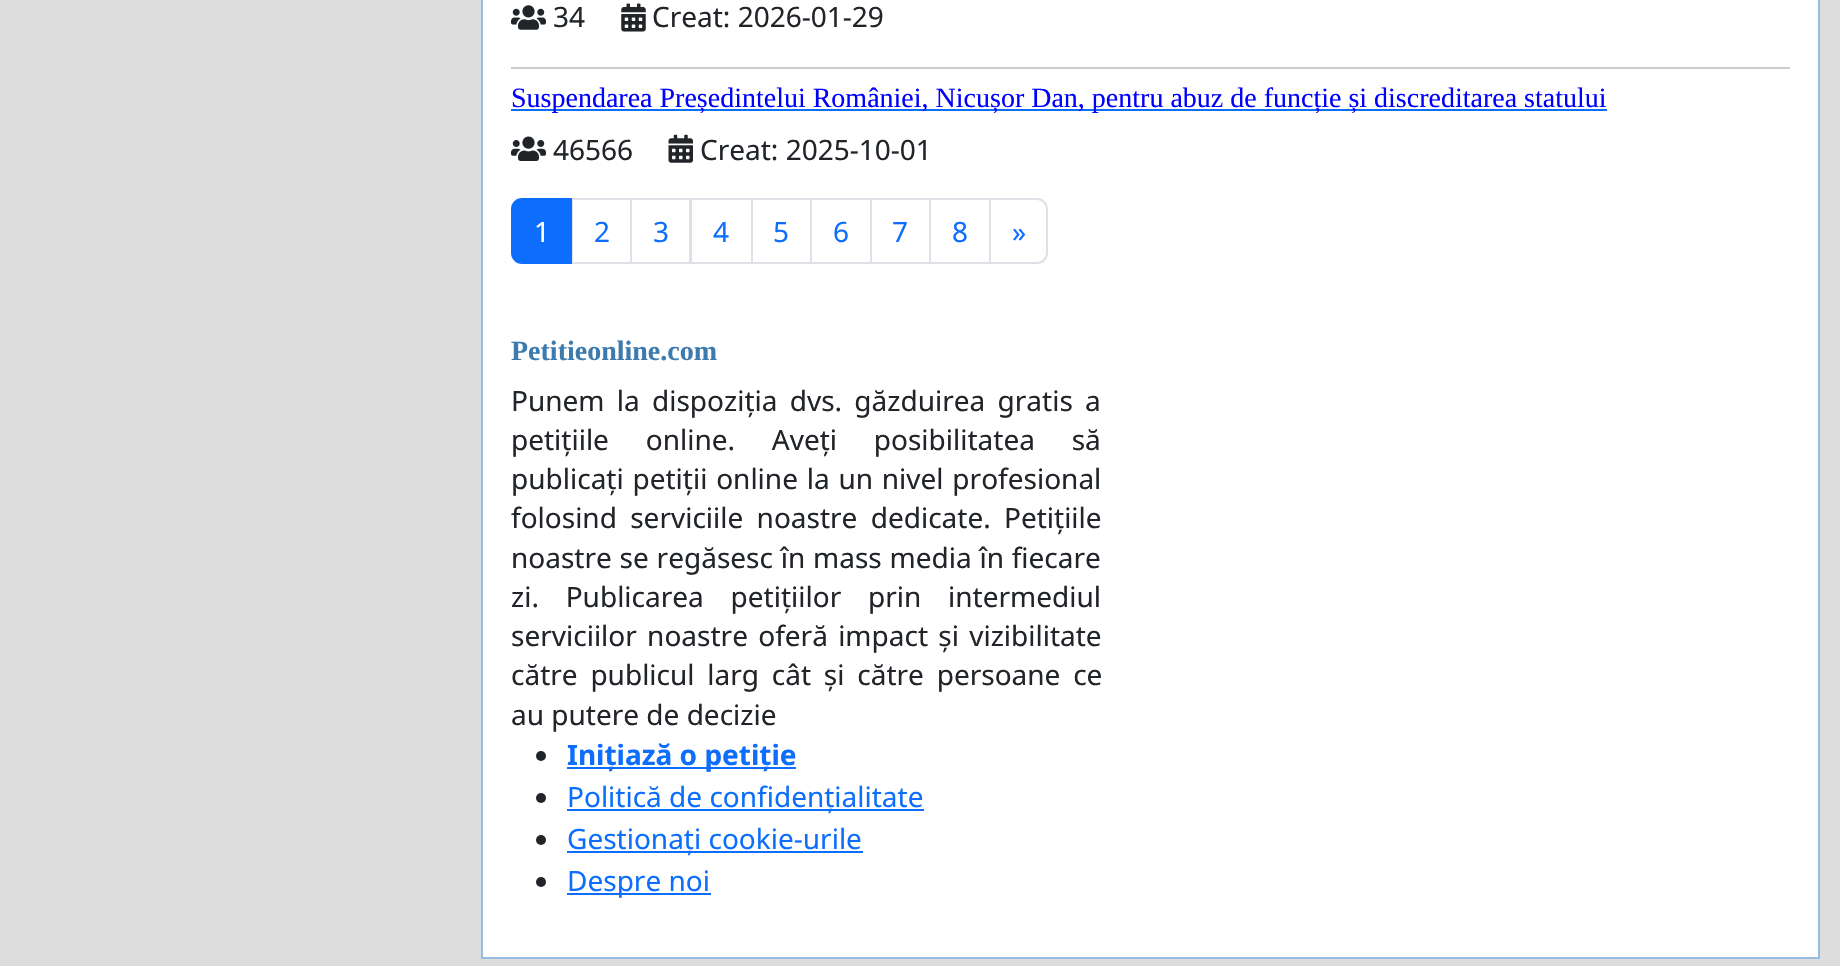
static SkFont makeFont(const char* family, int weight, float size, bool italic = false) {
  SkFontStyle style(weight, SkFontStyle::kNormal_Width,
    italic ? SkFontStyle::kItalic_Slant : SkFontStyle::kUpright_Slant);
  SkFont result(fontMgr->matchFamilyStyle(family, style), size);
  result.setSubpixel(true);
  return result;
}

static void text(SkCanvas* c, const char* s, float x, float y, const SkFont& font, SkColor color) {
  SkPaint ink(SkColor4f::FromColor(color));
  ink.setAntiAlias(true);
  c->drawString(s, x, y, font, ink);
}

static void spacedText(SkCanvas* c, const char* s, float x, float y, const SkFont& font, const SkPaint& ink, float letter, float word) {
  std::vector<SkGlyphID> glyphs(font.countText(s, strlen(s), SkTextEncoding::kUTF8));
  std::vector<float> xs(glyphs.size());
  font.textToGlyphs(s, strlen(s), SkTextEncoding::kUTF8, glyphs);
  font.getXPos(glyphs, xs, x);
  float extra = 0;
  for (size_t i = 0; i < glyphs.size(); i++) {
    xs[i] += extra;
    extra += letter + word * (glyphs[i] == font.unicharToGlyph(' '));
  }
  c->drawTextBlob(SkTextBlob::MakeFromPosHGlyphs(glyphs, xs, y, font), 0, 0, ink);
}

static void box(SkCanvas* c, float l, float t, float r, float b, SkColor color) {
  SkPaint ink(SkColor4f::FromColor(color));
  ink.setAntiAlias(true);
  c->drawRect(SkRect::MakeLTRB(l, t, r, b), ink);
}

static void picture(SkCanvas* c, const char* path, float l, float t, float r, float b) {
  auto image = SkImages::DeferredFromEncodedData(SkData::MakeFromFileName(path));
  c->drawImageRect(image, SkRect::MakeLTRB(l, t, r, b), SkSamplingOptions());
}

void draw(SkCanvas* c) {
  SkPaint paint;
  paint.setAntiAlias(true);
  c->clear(0xffdddddd);
  paint.setColor(0xffffffff);
  c->drawRect(SkRect::MakeLTRB(482, -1, 1819, 958), paint);
  paint.setStyle(SkPaint::kStroke_Style);
  paint.setStrokeWidth(2);
  paint.setColor(0xff95bce2);
  c->drawRect(SkRect::MakeLTRB(482, -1, 1819, 958), paint);
  picture(c, "img_01.png", 511, 5, 546, 30);
  SkFont face1 = makeFont("Noto Sans", 400, 28);
  text(c, "34", 553, 27, face1, 0xff212529);
  picture(c, "img_02.png", 621, 3, 646, 32);
  text(c, "Creat: 2026-01-29", 652, 27, face1, 0xff212529);
  box(c, 511, 67, 1790, 69, 0xffcccccc);
  box(c, 511, 109, 1607, 111, 0xff0d6efd);
  SkFont face2 = makeFont("Liberation Serif", 400, 28);
  text(c, "Suspendarea Președintelui României, Nicușor Dan, pentru abuz de funcție și discreditarea statului", 511, 107, face2, 0xff0000ff);
  picture(c, "img_03.png", 511, 136, 546, 161);
  text(c, "46566", 553, 160, face1, 0xff212529);
  picture(c, "img_04.png", 668, 134, 693, 163);
  text(c, "Creat: 2025-10-01", 700, 160, face1, 0xff212529);
  paint.setColor(0xffdee2e6);
  c->drawRect(SkRect::MakeLTRB(572, 199, 631, 263), paint);
  paint.setStyle(SkPaint::kFill_Style);
  paint.setColor(0xff0d6efd);
  c->drawPath(SkPathBuilder().moveTo(522, 199).lineTo(571, 199).lineTo(571, 263).lineTo(522, 263).cubicTo(516.5f, 263, 512, 258.5f, 512, 253).lineTo(512, 209).cubicTo(512, 203.5f, 516.5f, 199, 522, 199).close().detach(), paint);
  paint.setStyle(SkPaint::kStroke_Style);
  c->drawPath(SkPathBuilder().moveTo(522, 199).lineTo(571, 199).lineTo(571, 263).lineTo(522, 263).cubicTo(516.5f, 263, 512, 258.5f, 512, 253).lineTo(512, 209).cubicTo(512, 203.5f, 516.5f, 199, 522, 199).close().detach(), paint);
  text(c, "1", 534, 242, face1, 0xffffffff);
  text(c, "2", 594, 242, face1, 0xff0d6efd);
  paint.setColor(0xffdee2e6);
  c->drawRect(SkRect::MakeLTRB(631, 199, 690, 263), paint);
  text(c, "3", 653, 242, face1, 0xff0d6efd);
  c->drawRect(SkRect::MakeLTRB(691, 199, 752, 263), paint);
  text(c, "4", 713, 242, face1, 0xff0d6efd);
  c->drawRect(SkRect::MakeLTRB(752, 199, 811, 263), paint);
  text(c, "5", 773, 242, face1, 0xff0d6efd);
  c->drawRect(SkRect::MakeLTRB(811, 199, 871, 263), paint);
  text(c, "6", 833, 242, face1, 0xff0d6efd);
  c->drawRect(SkRect::MakeLTRB(871, 199, 930, 263), paint);
  text(c, "7", 892, 242, face1, 0xff0d6efd);
  c->drawRect(SkRect::MakeLTRB(930, 199, 990, 263), paint);
  text(c, "8", 952, 242, face1, 0xff0d6efd);
  paint.setStyle(SkPaint::kFill_Style);
  paint.setColor(0xffffffff);
  c->drawPath(SkPathBuilder().moveTo(990, 199).lineTo(1037, 199).cubicTo(1042.5f, 199, 1047, 203.5f, 1047, 209).lineTo(1047, 253).cubicTo(1047, 258.5f, 1042.5f, 263, 1037, 263).lineTo(990, 263).close().detach(), paint);
  paint.setStyle(SkPaint::kStroke_Style);
  paint.setColor(0xffdee2e6);
  c->drawPath(SkPathBuilder().moveTo(990, 199).lineTo(1037, 199).cubicTo(1042.5f, 199, 1047, 203.5f, 1047, 209).lineTo(1047, 253).cubicTo(1047, 258.5f, 1042.5f, 263, 1037, 263).lineTo(990, 263).close().detach(), paint);
  text(c, "»", 1012, 242, face1, 0xff0d6efd);
  SkFont face3 = makeFont("Liberation Serif", 700, 28);
  text(c, "Petitieonline.com", 511, 360, face3, 0xff3d7bae);
  paint.setStyle(SkPaint::kFill_Style);
  paint.setColor(0xff212529);
  spacedText(c, "Punem la dispoziția dvs. găzduirea gratis a", 511, 411, face1, paint, 0, 5);
  spacedText(c, "petițiile online. Aveți posibilitatea să", 511, 450, face1, paint, 0, 29.5f);
  spacedText(c, "publicați petiții online la un nivel profesional", 511, 489, face1, paint, 0, 1.5f);
  spacedText(c, "folosind serviciile noastre dedicate. Petițiile", 511, 528, face1, paint, 0, 6);
  spacedText(c, "noastre se regăsesc în mass media în fiecare", 511, 568, face1, paint, 0, 0.5f);
  spacedText(c, "zi. Publicarea petițiilor prin intermediul", 511, 607, face1, paint, 0, 19.5f);
  spacedText(c, "serviciilor noastre oferă impact și vizibilitate", 511, 646, face1, paint, 0, 3);
  spacedText(c, "către publicul larg cât și către persoane ce", 511, 685, face1, paint, 0, 5.5f);
  text(c, "au putere de decizie", 511, 725, face1, 0xff212529);
  c->drawCircle(541, 756, 5, paint);
  box(c, 567, 767, 796, 769, 0xff0d6efd);
  SkFont face4 = makeFont("Noto Sans", 700, 28);
  text(c, "Inițiază o petiție", 567, 765, face4, 0xff0d6efd);
  c->drawCircle(541, 798, 5, paint);
  box(c, 567, 809, 924, 811, 0xff0d6efd);
  text(c, "Politică de confidențialitate", 567, 807, face1, 0xff0d6efd);
  c->drawCircle(541, 840, 5, paint);
  box(c, 567, 851, 863, 853, 0xff0d6efd);
  text(c, "Gestionați cookie-urile", 567, 849, face1, 0xff0d6efd);
  c->drawCircle(541, 882, 5, paint);
  box(c, 567, 893, 711, 895, 0xff0d6efd);
  text(c, "Despre noi", 567, 891, face1, 0xff0d6efd);
}
